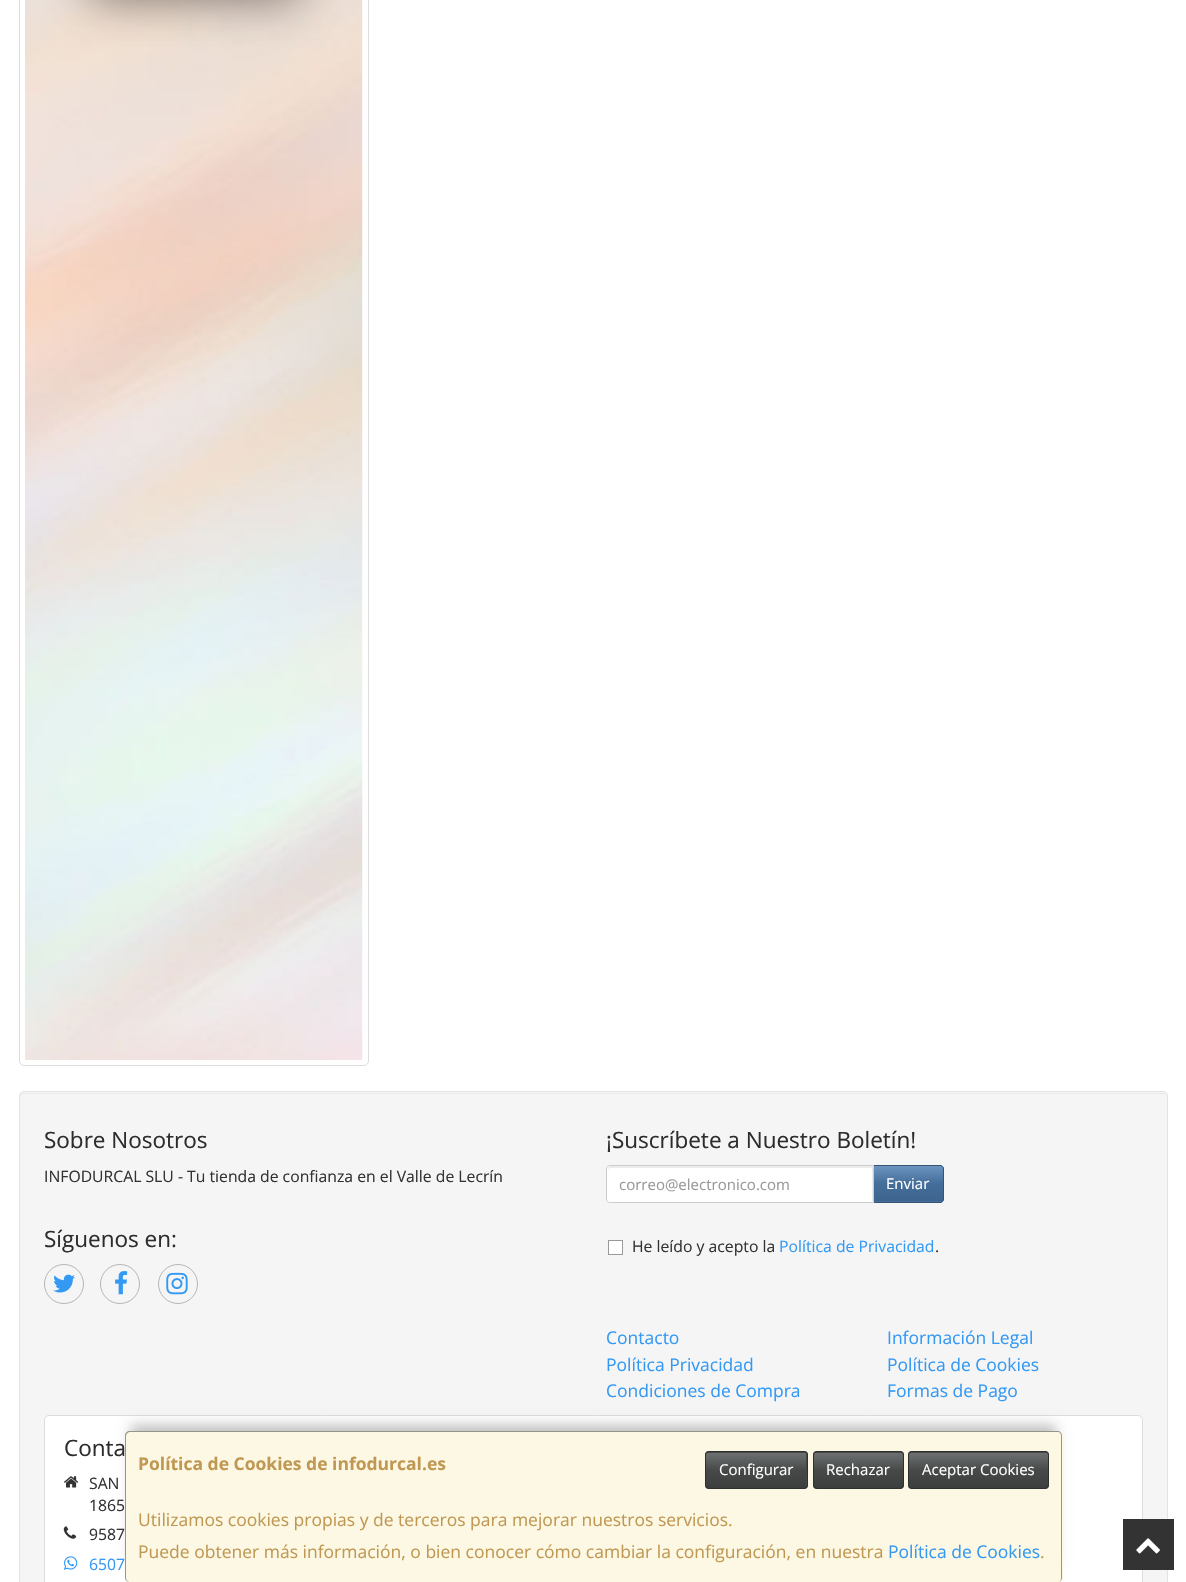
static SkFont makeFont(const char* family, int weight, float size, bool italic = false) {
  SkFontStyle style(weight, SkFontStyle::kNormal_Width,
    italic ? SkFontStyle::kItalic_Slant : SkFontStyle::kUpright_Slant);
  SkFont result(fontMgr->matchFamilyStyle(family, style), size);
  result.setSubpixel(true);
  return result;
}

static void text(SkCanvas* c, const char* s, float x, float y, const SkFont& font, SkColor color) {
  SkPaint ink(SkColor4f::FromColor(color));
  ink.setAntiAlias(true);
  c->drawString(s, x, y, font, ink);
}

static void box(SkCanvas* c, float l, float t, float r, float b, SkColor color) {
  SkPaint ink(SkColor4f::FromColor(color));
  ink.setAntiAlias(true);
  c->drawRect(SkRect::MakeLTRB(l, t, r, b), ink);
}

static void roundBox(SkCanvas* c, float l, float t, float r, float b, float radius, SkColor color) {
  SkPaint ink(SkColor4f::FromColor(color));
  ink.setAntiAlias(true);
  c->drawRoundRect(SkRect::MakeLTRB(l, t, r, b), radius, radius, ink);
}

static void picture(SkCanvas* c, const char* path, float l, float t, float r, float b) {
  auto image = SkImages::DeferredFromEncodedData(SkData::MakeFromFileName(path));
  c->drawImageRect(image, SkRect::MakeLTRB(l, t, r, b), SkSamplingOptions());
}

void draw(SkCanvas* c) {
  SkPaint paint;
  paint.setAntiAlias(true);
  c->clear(0xffffffff);
  paint.setStyle(SkPaint::kStroke_Style);
  paint.setStrokeWidth(1);
  paint.setColor(0xffdddddd);
  c->drawRoundRect(SkRect::MakeLTRB(19.5f, -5.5f, 368.5f, 1065.5f), 4.5f, 4.5f, paint);
  picture(c, "img_01.png", 25, 0, 363, 1060);
  roundBox(c, 19, 1091, 1168, 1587, 5, 0xfff5f5f5);
  paint.setStyle(SkPaint::kFill_Style);
  paint.setColor(0xffe9e9e9);
  c->drawPath(SkPathBuilder().moveTo(24, 1094).lineTo(1162, 1094).cubicTo(1165, 1094, 1166, 1095, 1166, 1098).cubicTo(1166, 1095, 1165, 1093, 1162, 1093).lineTo(24, 1093).cubicTo(21, 1093, 20, 1095, 20, 1098).cubicTo(20, 1095, 22, 1094, 24, 1094).close().detach(), paint);
  paint.setStyle(SkPaint::kStroke_Style);
  paint.setColor(0xffe3e3e3);
  c->drawRoundRect(SkRect::MakeLTRB(19.5f, 1091.5f, 1167.5f, 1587.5f), 4.5f, 4.5f, paint);
  SkFont face1 = makeFont("Open Sans", 400, 22.5f);
  text(c, "Sobre Nosotros", 44, 1148, face1, 0xff2d2d2d);
  SkFont face2 = makeFont("Open Sans", 400, 15.75f);
  text(c, "INFODURCAL SLU - Tu tienda de confianza en el Valle de Lecrín", 44, 1182, face2, 0xff333333);
  text(c, "Síguenos en:", 44, 1247, face1, 0xff2d2d2d);
  paint.setColor(0xffb5b5b5);
  c->drawCircle(64, 1284, 19.5f, paint);
  picture(c, "img_02.png", 53, 1274, 75, 1293);
  c->drawCircle(120, 1284, 19.5f, paint);
  picture(c, "img_03.png", 115, 1271, 128, 1295);
  c->drawCircle(178, 1284, 19.5f, paint);
  picture(c, "img_04.png", 166, 1272, 188, 1295);
  text(c, "¡Suscríbete a Nuestro Boletín!", 606, 1148, face1, 0xff2d2d2d);
  paint.setStyle(SkPaint::kFill_Style);
  paint.setColor(0xff446e9b);
  c->drawPath(SkPathBuilder().moveTo(873, 1165).lineTo(940, 1165).cubicTo(942, 1165, 944, 1167, 944, 1169).lineTo(944, 1199).cubicTo(944, 1201, 942, 1203, 940, 1203).lineTo(873, 1203).close().detach(), paint);
  {
    const SkColor colors[] = {0xff6d94bf, 0xff446e9b, 0xff3e648d};
    const float stops[] = {0, 0.5f, 1};
    const SkPoint ends[] = {{908, 1166}, {908, 1201}};
    paint.setShader(SkGradientShader::MakeLinear(ends, colors, stops, 3, SkTileMode::kClamp));
    paint.setAlpha(255);
  }
  c->drawRect(SkRect::MakeLTRB(874, 1166, 943, 1201), paint);
  paint.setStyle(SkPaint::kStroke_Style);
  paint.setShader(nullptr);
  paint.setColor(0xff345578);
  c->drawPath(SkPathBuilder().moveTo(873.5f, 1165.5f).lineTo(940, 1165.5f).cubicTo(942, 1165.5f, 943.5f, 1167, 943.5f, 1169).lineTo(943.5f, 1199).cubicTo(943.5f, 1201, 942, 1202.5f, 940, 1202.5f).lineTo(873.5f, 1202.5f).close().detach(), paint);
  paint.setStyle(SkPaint::kFill_Style);
  paint.setColor(0xffffffff);
  c->drawPath(SkPathBuilder().moveTo(610, 1165).lineTo(874, 1165).lineTo(874, 1203).lineTo(610, 1203).cubicTo(608, 1203, 606, 1201, 606, 1199).lineTo(606, 1169).cubicTo(606, 1167, 608, 1165, 610, 1165).close().detach(), paint);
  paint.setColor(0xffececec);
  c->drawPath(SkPathBuilder().moveTo(610, 1168).lineTo(872, 1168).lineTo(872, 1201).lineTo(873, 1201).lineTo(873, 1166).lineTo(610, 1166).cubicTo(609, 1166, 608, 1167, 608, 1168).lineTo(608, 1170).cubicTo(608, 1169, 609, 1168, 610, 1168).close().detach(), paint);
  paint.setStyle(SkPaint::kStroke_Style);
  paint.setColor(0xffcccccc);
  c->drawPath(SkPathBuilder().moveTo(610, 1165.5f).lineTo(873.5f, 1165.5f).lineTo(873.5f, 1202.5f).lineTo(610, 1202.5f).cubicTo(608, 1202.5f, 606.5f, 1201, 606.5f, 1199).lineTo(606.5f, 1169).cubicTo(606.5f, 1167, 608, 1165.5f, 610, 1165.5f).close().detach(), paint);
  SkFont face3 = makeFont("Open Sans", 400, 15);
  text(c, "correo@electronico.com", 619, 1190, face3, 0xff999999);
  text(c, "Enviar", 886, 1189, face3, 0xffffffff);
  paint.setStyle(SkPaint::kFill_Style);
  paint.setColor(0xffffffff);
  c->drawRect(SkRect::MakeLTRB(608.5f, 1240.5f, 622.5f, 1254.5f), paint);
  paint.setStyle(SkPaint::kStroke_Style);
  paint.setColor(0xff999999);
  c->drawRect(SkRect::MakeLTRB(608.5f, 1240.5f, 622.5f, 1254.5f), paint);
  text(c, "He leído y acepto la", 632, 1252, face2, 0xff333333);
  text(c, "Política de Privacidad", 779, 1252, face2, 0xff3399f3);
  text(c, ".", 935, 1252, face2, 0xff333333);
  SkFont face4 = makeFont("Open Sans", 400, 17.5f);
  text(c, "Contacto", 606, 1344, face4, 0xff3399f3);
  text(c, "Información Legal", 887, 1344, face4, 0xff3399f3);
  text(c, "Política Privacidad", 606, 1371, face4, 0xff3399f3);
  text(c, "Política de Cookies", 887, 1371, face4, 0xff3399f3);
  text(c, "Condiciones de Compra", 606, 1397, face4, 0xff3399f3);
  text(c, "Formas de Pago", 887, 1397, face4, 0xff3399f3);
  paint.setStyle(SkPaint::kFill_Style);
  paint.setColor(0xffffffff);
  c->drawRoundRect(SkRect::MakeLTRB(44.5f, 1415.5f, 1142.5f, 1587.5f), 4.5f, 4.5f, paint);
  paint.setStyle(SkPaint::kStroke_Style);
  paint.setColor(0xffdddddd);
  c->drawRoundRect(SkRect::MakeLTRB(44.5f, 1415.5f, 1142.5f, 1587.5f), 4.5f, 4.5f, paint);
  text(c, "Conta", 64, 1456, face1, 0xff2d2d2d);
  picture(c, "img_05.png", 64, 1476, 79, 1488);
  text(c, "SAN", 89, 1489, face2, 0xff333333);
  text(c, "1865", 89, 1511, face2, 0xff333333);
  picture(c, "img_06.png", 63, 1526, 77, 1539);
  text(c, "9587", 89, 1540, face2, 0xff333333);
  picture(c, "img_07.png", 63, 1556, 78, 1570);
  text(c, "6507", 89, 1570, face2, 0xff3399f3);
  paint.setStyle(SkPaint::kFill_Style);
  paint.setColor(0x40000000);
  paint.setMaskFilter(SkMaskFilter::MakeBlur(kNormal_SkBlurStyle, 6));
  c->drawRect(SkRect::MakeLTRB(131, 1425, 1056, 1564), paint);
  paint.setMaskFilter(nullptr);
  roundBox(c, 125, 1431, 1063, 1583, 5, 0xfffcf8e3);
  paint.setColor(0x66000000);
  c->drawPath(SkPathBuilder(SkPathFillType::kEvenOdd).moveTo(130, 1431).lineTo(1058, 1431).cubicTo(1060, 1431, 1062, 1433, 1062, 1436).lineTo(1062, 1578).cubicTo(1062, 1580, 1060, 1582, 1058, 1582).lineTo(130, 1582).cubicTo(127, 1582, 125, 1580, 125, 1578).lineTo(125, 1436).cubicTo(125, 1433, 127, 1431, 130, 1431).close().moveTo(130, 1432).lineTo(1058, 1432).cubicTo(1060, 1432, 1061, 1434, 1061, 1436).lineTo(1061, 1578).cubicTo(1061, 1580, 1060, 1582, 1058, 1582).lineTo(130, 1582).cubicTo(128, 1582, 126, 1580, 126, 1578).lineTo(126, 1436).cubicTo(126, 1434, 128, 1432, 130, 1432).close().detach(), paint);
  SkFont face5 = makeFont("Open Sans", 700, 17.5f);
  text(c, "Política de Cookies de infodurcal.es", 138, 1470, face5, 0xffc09853);
  roundBox(c, 705, 1451, 808, 1489, 4, 0xff474949);
  {
    const SkColor colors[] = {0xff6d7070, 0xff474949, 0xff3d3f3f};
    const float stops[] = {0, 0.5f, 1};
    const SkPoint ends[] = {{756, 1453}, {756, 1488}};
    paint.setShader(SkGradientShader::MakeLinear(ends, colors, stops, 3, SkTileMode::kClamp));
    paint.setAlpha(255);
  }
  c->drawRect(SkRect::MakeLTRB(706, 1453, 806, 1488), paint);
  paint.setStyle(SkPaint::kStroke_Style);
  paint.setShader(nullptr);
  paint.setColor(0xff2e2f2f);
  c->drawRoundRect(SkRect::MakeLTRB(705.5f, 1451.5f, 807.5f, 1488.5f), 3.5f, 3.5f, paint);
  text(c, "Configurar", 719, 1475, face3, 0xffffffff);
  roundBox(c, 813, 1451, 904, 1489, 4, 0xff474949);
  paint.setStyle(SkPaint::kFill_Style);
  {
    const SkColor colors[] = {0xff6d7070, 0xff474949, 0xff3d3f3f};
    const float stops[] = {0, 0.5f, 1};
    const SkPoint ends[] = {{858, 1453}, {858, 1488}};
    paint.setShader(SkGradientShader::MakeLinear(ends, colors, stops, 3, SkTileMode::kClamp));
    paint.setAlpha(255);
  }
  c->drawRect(SkRect::MakeLTRB(814, 1453, 903, 1488), paint);
  paint.setStyle(SkPaint::kStroke_Style);
  paint.setShader(nullptr);
  paint.setColor(0xff2e2f2f);
  c->drawRoundRect(SkRect::MakeLTRB(813.5f, 1451.5f, 903.5f, 1488.5f), 3.5f, 3.5f, paint);
  text(c, "Rechazar", 826, 1475, face3, 0xffffffff);
  roundBox(c, 908, 1451, 1049, 1489, 4, 0xff474949);
  paint.setStyle(SkPaint::kFill_Style);
  {
    const SkColor colors[] = {0xff6d7070, 0xff474949, 0xff3d3f3f};
    const float stops[] = {0, 0.5f, 1};
    const SkPoint ends[] = {{978, 1453}, {978, 1488}};
    paint.setShader(SkGradientShader::MakeLinear(ends, colors, stops, 3, SkTileMode::kClamp));
    paint.setAlpha(255);
  }
  c->drawRect(SkRect::MakeLTRB(909, 1453, 1048, 1488), paint);
  paint.setStyle(SkPaint::kStroke_Style);
  paint.setShader(nullptr);
  paint.setColor(0xff2e2f2f);
  c->drawRoundRect(SkRect::MakeLTRB(908.5f, 1451.5f, 1048.5f, 1488.5f), 3.5f, 3.5f, paint);
  text(c, "Aceptar Cookies", 922, 1475, face3, 0xffffffff);
  text(c, "Utilizamos cookies propias y de terceros para mejorar nuestros servicios.", 138, 1526, face4, 0xffc09853);
  text(c, "Puede obtener más información, o bien conocer cómo cambiar la configuración, en nuestra", 138, 1558, face4, 0xffc09853);
  text(c, "Política de Cookies", 888, 1558, face4, 0xff3399f3);
  text(c, ".", 1040, 1558, face4, 0xffc09853);
  box(c, 1123, 1519, 1174, 1570, 0xff333333);
  picture(c, "img_08.png", 1136, 1538, 1160, 1554);
}
